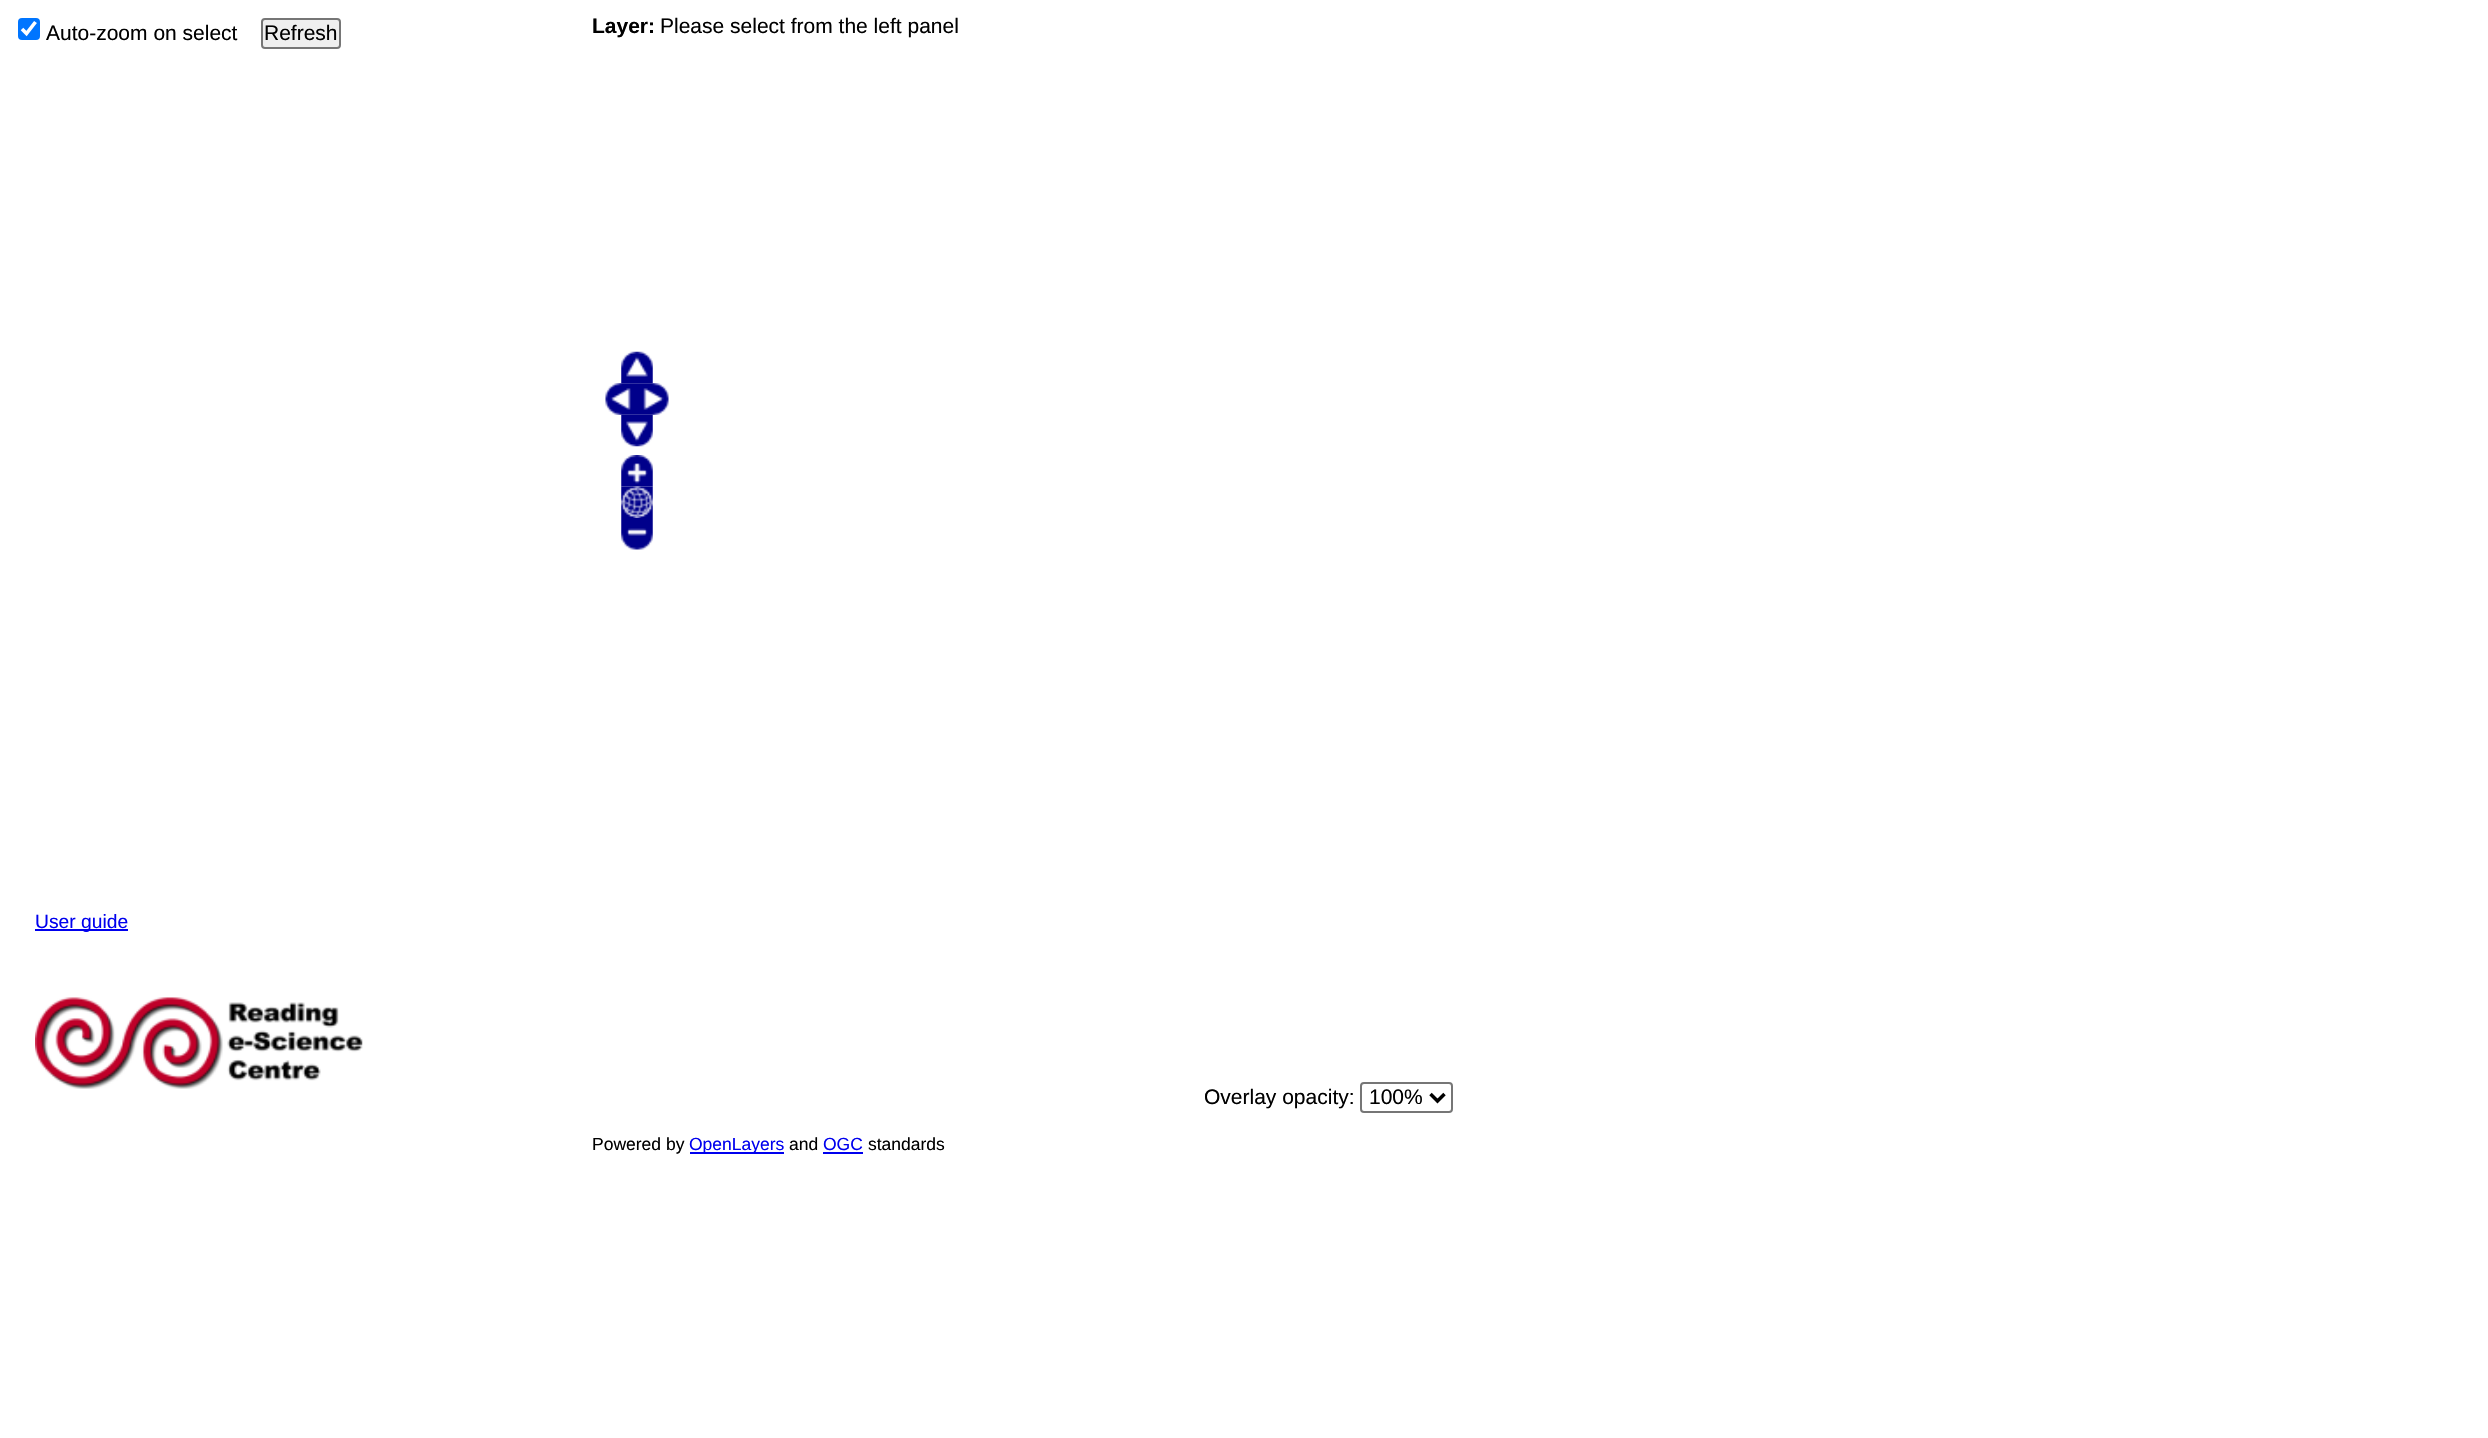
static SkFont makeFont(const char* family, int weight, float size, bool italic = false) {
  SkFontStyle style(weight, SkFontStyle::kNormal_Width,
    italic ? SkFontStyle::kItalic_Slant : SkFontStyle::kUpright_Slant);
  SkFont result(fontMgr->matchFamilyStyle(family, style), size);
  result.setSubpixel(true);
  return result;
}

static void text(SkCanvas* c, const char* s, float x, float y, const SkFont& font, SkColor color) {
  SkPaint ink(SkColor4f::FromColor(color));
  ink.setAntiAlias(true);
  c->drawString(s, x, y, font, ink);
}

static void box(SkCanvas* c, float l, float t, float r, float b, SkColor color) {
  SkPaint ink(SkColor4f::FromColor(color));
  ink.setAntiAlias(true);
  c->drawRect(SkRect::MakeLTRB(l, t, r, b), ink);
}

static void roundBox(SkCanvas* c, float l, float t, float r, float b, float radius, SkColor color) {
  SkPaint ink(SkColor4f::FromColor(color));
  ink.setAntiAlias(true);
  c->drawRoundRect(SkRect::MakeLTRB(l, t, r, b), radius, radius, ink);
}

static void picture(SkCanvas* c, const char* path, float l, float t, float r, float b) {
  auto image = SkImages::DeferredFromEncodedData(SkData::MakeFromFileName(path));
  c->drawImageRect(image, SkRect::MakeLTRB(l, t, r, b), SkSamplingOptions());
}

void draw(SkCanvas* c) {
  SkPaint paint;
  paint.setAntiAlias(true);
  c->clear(0xffffffff);
  roundBox(c, 18, 18, 40, 40, 4, 0xff0075ff);
  paint.setStyle(SkPaint::kStroke_Style);
  paint.setStrokeWidth(3.6f);
  paint.setColor(0xffffffff);
  c->drawPath(SkPathBuilder().moveTo(22, 29).lineTo(26.5f, 33.5f).lineTo(35.5f, 22).detach(), paint);
  SkFont face1 = makeFont("Liberation Sans", 400, 21);
  text(c, "Auto-zoom on select", 46, 40, face1, 0xff000000);
  paint.setStyle(SkPaint::kFill_Style);
  paint.setColor(0xffefefef);
  c->drawRoundRect(SkRect::MakeLTRB(262, 19, 340, 48), 3, 3, paint);
  paint.setStyle(SkPaint::kStroke_Style);
  paint.setStrokeWidth(2);
  paint.setColor(0xff767676);
  c->drawRoundRect(SkRect::MakeLTRB(262, 19, 340, 48), 3, 3, paint);
  text(c, "Refresh", 264, 40, face1, 0xff000000);
  box(c, 35, 929, 128, 931, 0xff0000ee);
  SkFont face2 = makeFont("Liberation Sans", 400, 19.25f);
  text(c, "User guide", 35, 928, face2, 0xff0000ee);
  picture(c, "img_01.png", 35, 997, 363, 1089);
  SkFont face3 = makeFont("Liberation Sans", 700, 21);
  text(c, "Layer:", 592, 33, face3, 0xff000000);
  text(c, "Please select from the left panel", 660, 33, face1, 0xff000000);
  picture(c, "img_02.png", 621, 351, 653, 384);
  picture(c, "img_03.png", 605, 383, 637, 415);
  picture(c, "img_04.png", 637, 383, 669, 415);
  picture(c, "img_05.png", 621, 414, 653, 447);
  picture(c, "img_06.png", 621, 455, 653, 487);
  picture(c, "img_07.png", 621, 486, 653, 518);
  picture(c, "img_08.png", 621, 518, 653, 550);
  text(c, "Overlay opacity:", 1204, 1104, face1, 0xff000000);
  c->drawRoundRect(SkRect::MakeLTRB(1361, 1083, 1452, 1112), 3, 3, paint);
  paint.setStrokeWidth(3.5f);
  paint.setColor(0xff000000);
  c->drawPath(SkPathBuilder().moveTo(1430.5f, 1094).lineTo(1437.5f, 1101).lineTo(1444.5f, 1094).detach(), paint);
  text(c, "100%", 1369, 1104, face1, 0xff000000);
  SkFont face4 = makeFont("Liberation Sans", 400, 17.5f);
  text(c, "Powered by", 592, 1150, face4, 0xff000000);
  box(c, 690, 1152, 784, 1154, 0xff0000ee);
  text(c, "OpenLayers", 689, 1150, face4, 0xff0000ee);
  text(c, "and", 789, 1150, face4, 0xff000000);
  text(c, "OGC", 823, 1150, face4, 0xff0000ee);
  box(c, 823, 1152, 863, 1154, 0xff0000ee);
  text(c, "standards", 868, 1150, face4, 0xff000000);
}
